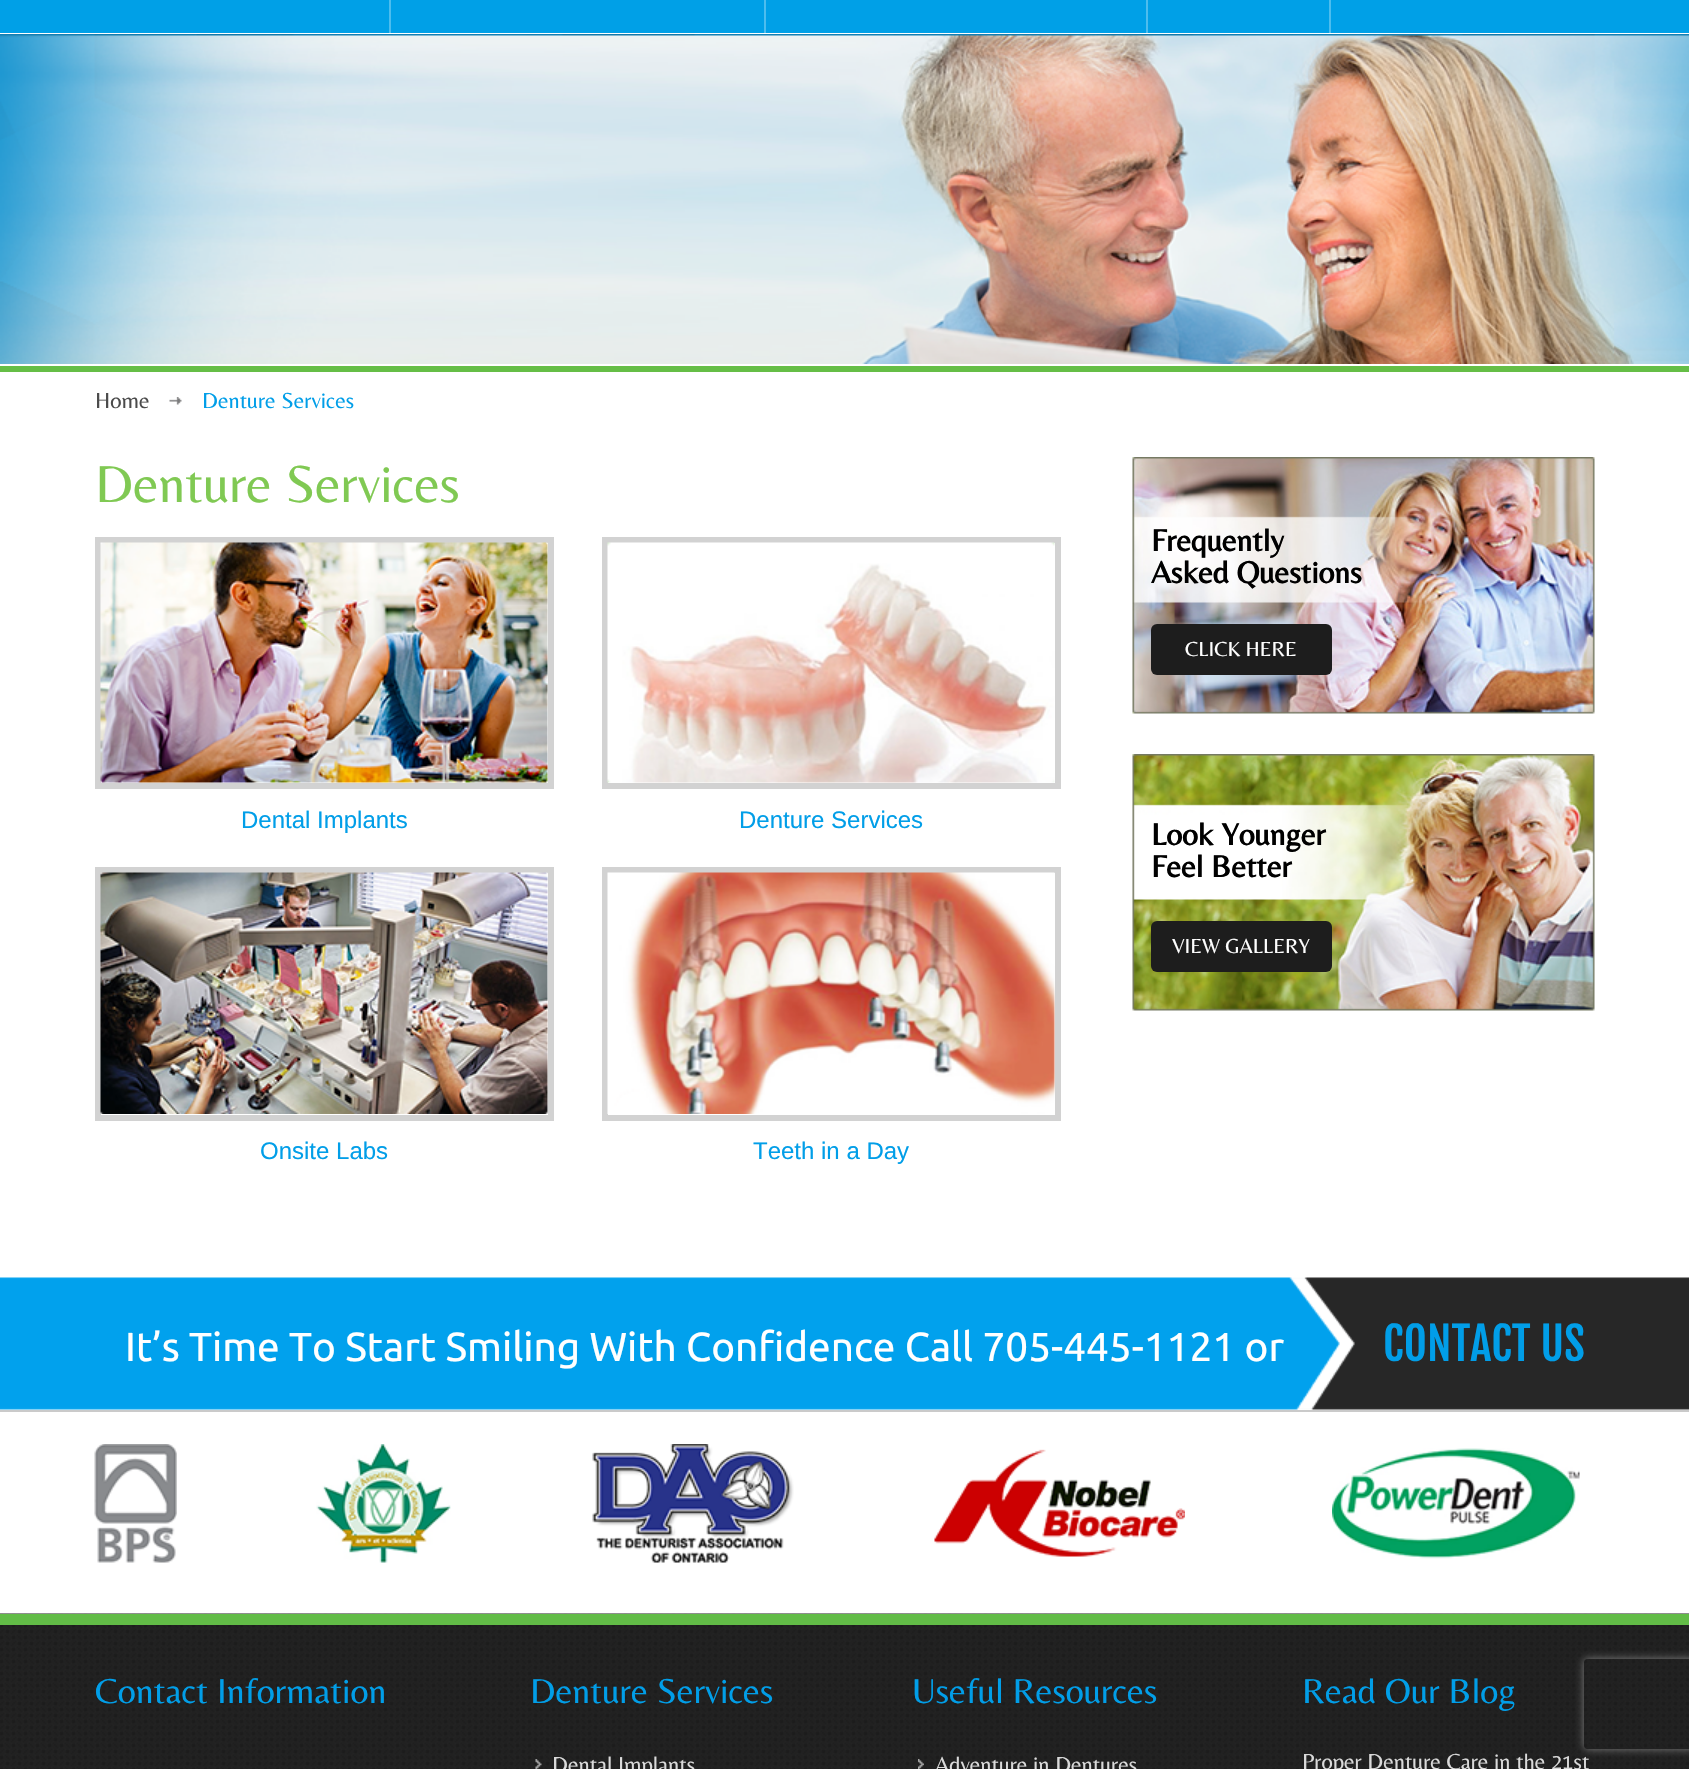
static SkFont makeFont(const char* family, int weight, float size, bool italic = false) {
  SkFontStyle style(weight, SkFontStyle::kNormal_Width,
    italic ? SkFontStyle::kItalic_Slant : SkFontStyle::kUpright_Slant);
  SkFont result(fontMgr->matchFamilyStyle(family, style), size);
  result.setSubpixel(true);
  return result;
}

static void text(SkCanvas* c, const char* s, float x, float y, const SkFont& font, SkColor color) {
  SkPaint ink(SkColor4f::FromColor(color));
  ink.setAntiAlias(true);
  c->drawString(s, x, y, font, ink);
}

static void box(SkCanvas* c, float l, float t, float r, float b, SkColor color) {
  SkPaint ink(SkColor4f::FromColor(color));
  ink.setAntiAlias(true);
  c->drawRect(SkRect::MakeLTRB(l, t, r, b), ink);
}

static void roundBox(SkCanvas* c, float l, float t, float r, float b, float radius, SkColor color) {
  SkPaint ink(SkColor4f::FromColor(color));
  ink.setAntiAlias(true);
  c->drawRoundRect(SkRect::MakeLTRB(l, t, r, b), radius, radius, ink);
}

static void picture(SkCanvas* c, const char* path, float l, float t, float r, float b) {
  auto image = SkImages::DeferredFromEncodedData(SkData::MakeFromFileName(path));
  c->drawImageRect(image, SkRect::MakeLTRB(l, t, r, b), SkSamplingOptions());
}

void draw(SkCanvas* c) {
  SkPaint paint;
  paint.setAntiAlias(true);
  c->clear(0xffffffff);
  box(c, 0, 0, 1689, 33, 0xff00a0e7);
  box(c, 389, 0, 391, 33, 0xff4dbdee);
  box(c, 764, 0, 766, 33, 0xff4dbdee);
  box(c, 1146, 0, 1148, 33, 0xff4dbdee);
  box(c, 1329, 0, 1331, 33, 0xff4dbdee);
  picture(c, "img_01.png", 0, 34, 1689, 364);
  box(c, 0, 366, 1689, 372, 0xff65be46);
  SkFont face1 = makeFont("Belleza", 400, 22.5f);
  text(c, "Home", 95, 408, face1, 0xff4b4b4b);
  picture(c, "img_02.png", 169, 397, 182, 405);
  text(c, "Denture Services", 202, 408, face1, 0xff019ee8);
  SkFont face2 = makeFont("Belleza", 400, 54);
  text(c, "Denture Services", 95, 502, face2, 0xff80c953);
  paint.setStyle(SkPaint::kStroke_Style);
  paint.setStrokeWidth(6);
  paint.setColor(0xffd2d2d2);
  c->drawRect(SkRect::MakeLTRB(98, 540, 551, 786), paint);
  picture(c, "img_03.png", 100, 542, 548, 783);
  SkFont face3 = makeFont("Liberation Sans", 400, 24);
  text(c, "Dental Implants", 241, 828, face3, 0xff019ee8);
  c->drawRect(SkRect::MakeLTRB(605, 540, 1058, 786), paint);
  picture(c, "img_04.png", 607, 542, 1055, 783);
  text(c, "Denture Services", 739, 828, face3, 0xff019ee8);
  c->drawRect(SkRect::MakeLTRB(98, 870, 551, 1118), paint);
  picture(c, "img_05.png", 100, 872, 548, 1114);
  text(c, "Onsite Labs", 260, 1159, face3, 0xff019ee8);
  c->drawRect(SkRect::MakeLTRB(605, 870, 1058, 1118), paint);
  picture(c, "img_06.png", 607, 872, 1055, 1114);
  text(c, "Teeth in a Day", 753, 1159, face3, 0xff019ee8);
  picture(c, "img_07.png", 1132, 457, 1595, 714);
  SkFont face4 = makeFont("Belleza", 700, 31.5f);
  text(c, "Frequently", 1151, 551, face4, 0xff000000);
  text(c, "Asked Questions", 1151, 583, face4, 0xff000000);
  roundBox(c, 1151, 624, 1332, 675, 6, 0xff1d1d1d);
  SkFont face5 = makeFont("Belleza", 400, 21);
  text(c, "CLICK HERE", 1185, 656, face5, 0xffffffff);
  picture(c, "img_08.png", 1132, 754, 1595, 1011);
  text(c, "Look Younger", 1151, 845, face4, 0xff000000);
  text(c, "Feel Better", 1151, 877, face4, 0xff000000);
  roundBox(c, 1151, 921, 1332, 972, 6, 0xff1d1d1d);
  text(c, "VIEW GALLERY", 1172, 953, face5, 0xffffffff);
  picture(c, "img_09.png", 0, 1277, 1689, 1410);
  SkFont face6 = makeFont("Ubuntu", 400, 40.5f);
  text(c, "It’s Time To Start Smiling With Confidence Call 705-445-1121 or", 125, 1361, face6, 0xffffffff);
  SkFont face7 = makeFont("Fjalla One", 400, 45);
  text(c, "CONTACT US", 1383, 1361, face7, 0xff019ee8);
  box(c, 0, 1410, 1689, 1412, 0xffcacaca);
  picture(c, "img_10.png", 94, 1444, 177, 1563);
  picture(c, "img_11.png", 316, 1444, 451, 1563);
  picture(c, "img_12.png", 592, 1444, 794, 1563);
  picture(c, "img_13.png", 934, 1449, 1185, 1557);
  picture(c, "img_14.png", 1332, 1448, 1580, 1559);
  picture(c, "img_15.png", 0, 1613, 1689, 1769);
  box(c, 0, 1614, 1689, 1625, 0xff62bc47);
  SkFont face8 = makeFont("Belleza", 400, 36);
  text(c, "Contact Information", 95, 1703, face8, 0xff019ee8);
  text(c, "Denture Services", 530, 1703, face8, 0xff019ee8);
  picture(c, "img_16.png", 535, 1759, 542, 1769);
  text(c, "Dental Implants", 552, 1772, face1, 0xffdadada);
  text(c, "Useful Resources", 912, 1703, face8, 0xff019ee8);
  picture(c, "img_17.png", 918, 1759, 924, 1769);
  text(c, "Adventure in Dentures", 935, 1772, face1, 0xffdadada);
  text(c, "Read Our Blog", 1302, 1703, face8, 0xff019ee8);
  text(c, "Proper Denture Care in the 21st", 1302, 1769, face1, 0xffdadada);
  c->save();
  c->clipPath(SkPathBuilder(SkPathFillType::kEvenOdd).moveTo(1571, 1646).lineTo(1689, 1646).lineTo(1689, 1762).lineTo(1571, 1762).close().moveTo(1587, 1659).lineTo(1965, 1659).cubicTo(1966.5f, 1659, 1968, 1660.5f, 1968, 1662).lineTo(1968, 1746).cubicTo(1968, 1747.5f, 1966.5f, 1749, 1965, 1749).lineTo(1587, 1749).cubicTo(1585.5f, 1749, 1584, 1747.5f, 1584, 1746).lineTo(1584, 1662).cubicTo(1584, 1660.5f, 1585.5f, 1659, 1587, 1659).close().detach(), true);
  paint.setStyle(SkPaint::kFill_Style);
  paint.setColor(0xff808080);
  paint.setMaskFilter(SkMaskFilter::MakeBlur(kNormal_SkBlurStyle, 4));
  c->drawRoundRect(SkRect::MakeLTRB(1584, 1659, 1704, 1749), 3, 3, paint);
  paint.setMaskFilter(nullptr);
  c->restore();
}
